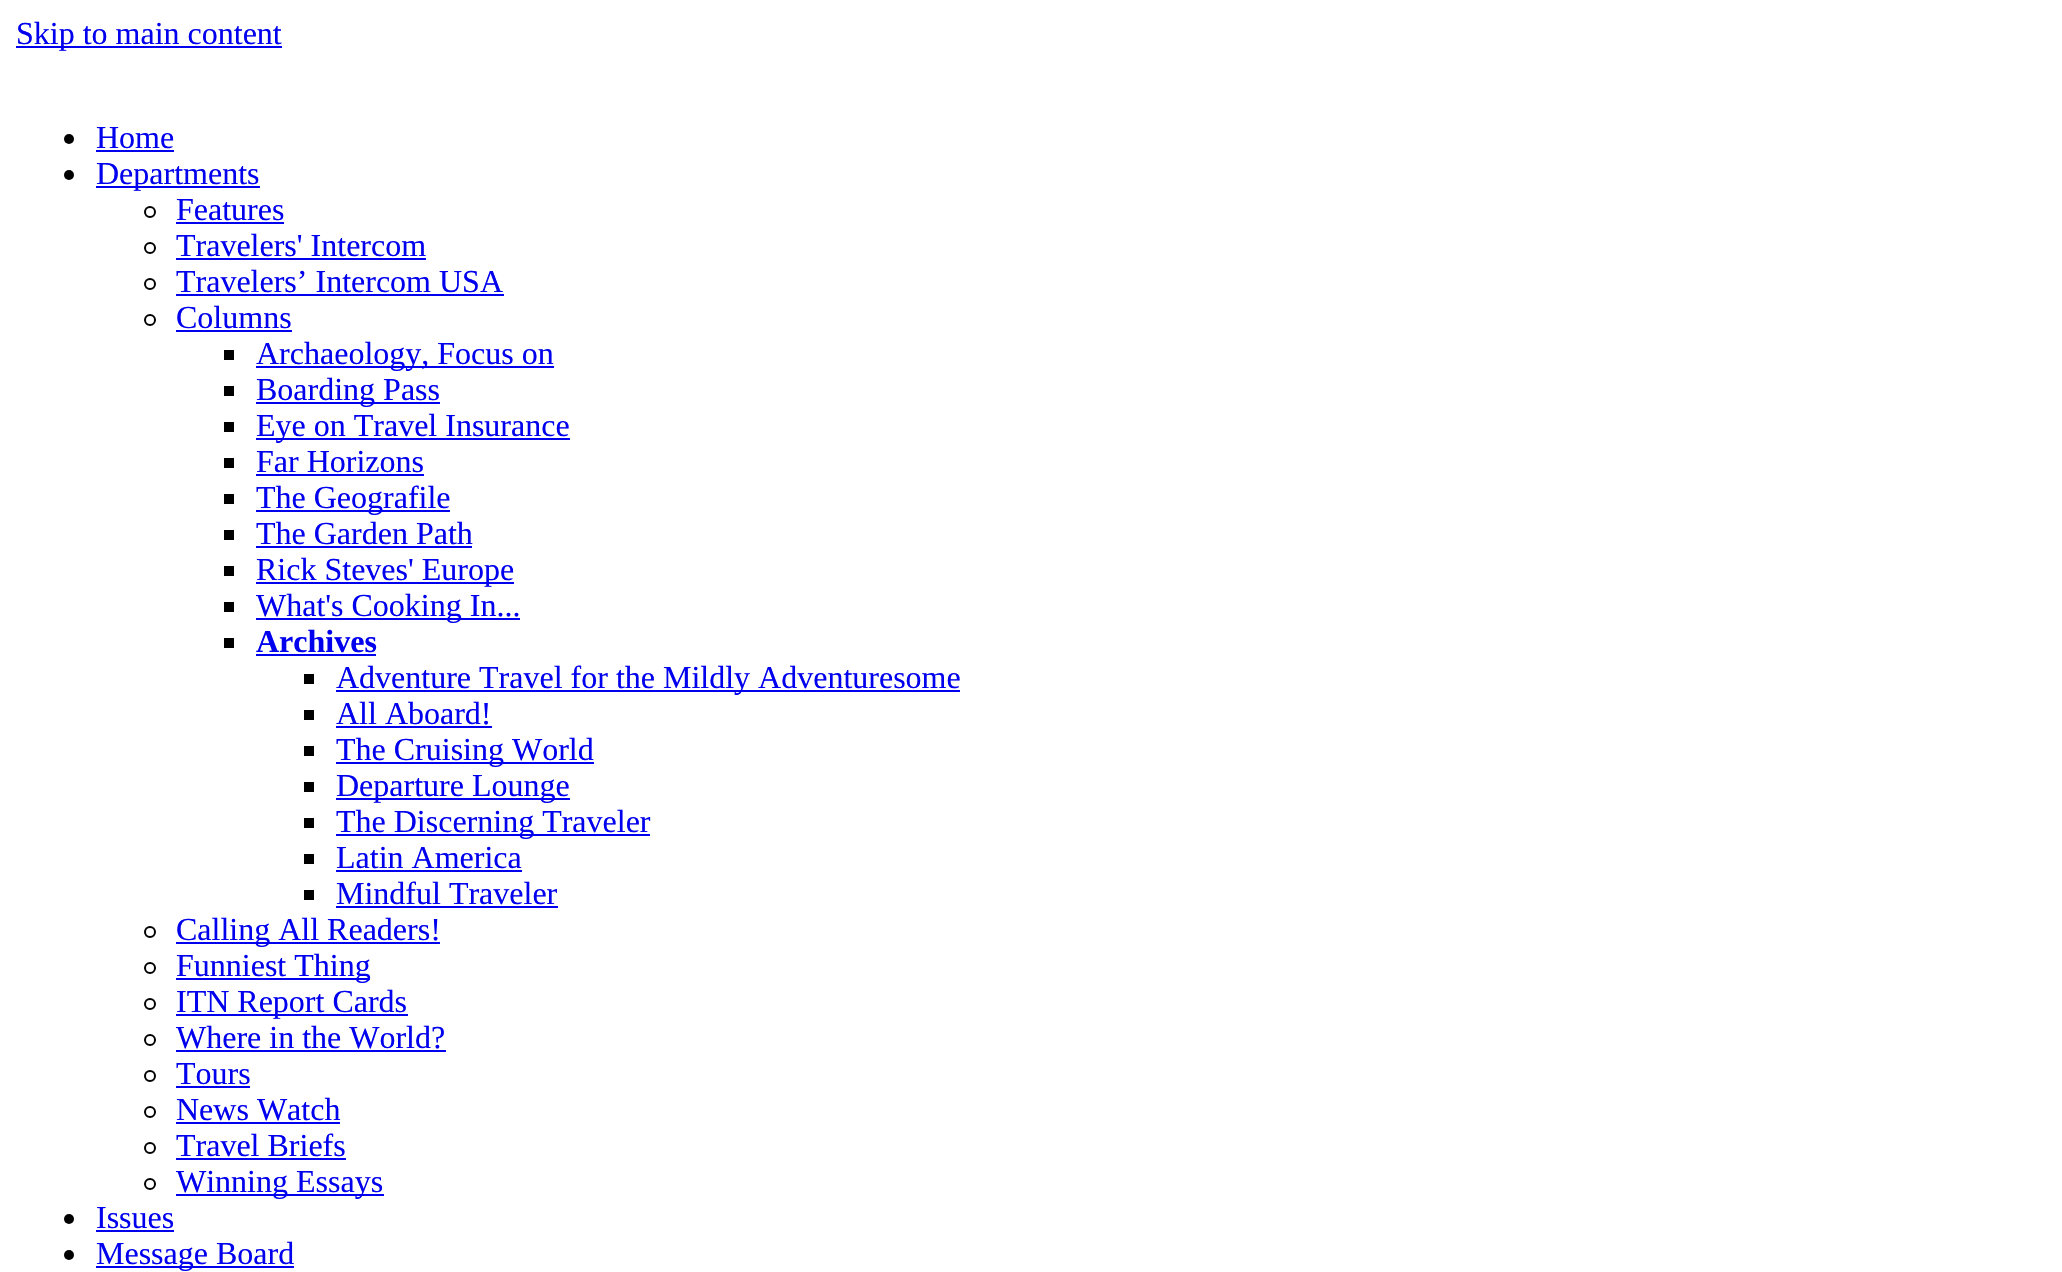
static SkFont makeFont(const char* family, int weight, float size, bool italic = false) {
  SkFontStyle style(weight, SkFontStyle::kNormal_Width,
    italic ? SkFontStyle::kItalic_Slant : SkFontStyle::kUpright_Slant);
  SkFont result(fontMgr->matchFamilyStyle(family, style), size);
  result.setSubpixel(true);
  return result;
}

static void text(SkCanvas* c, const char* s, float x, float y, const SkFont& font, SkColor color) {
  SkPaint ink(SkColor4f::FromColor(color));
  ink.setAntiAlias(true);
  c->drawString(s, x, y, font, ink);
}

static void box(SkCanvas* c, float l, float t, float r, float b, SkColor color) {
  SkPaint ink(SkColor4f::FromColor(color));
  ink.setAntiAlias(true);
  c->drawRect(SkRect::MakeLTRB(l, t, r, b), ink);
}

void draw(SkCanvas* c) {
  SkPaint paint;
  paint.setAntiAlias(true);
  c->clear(0xffffffff);
  box(c, 16, 46, 282, 48, 0xff0000ee);
  SkFont face1 = makeFont("Liberation Serif", 400, 32);
  text(c, "Skip to main content", 16, 44, face1, 0xff0000ee);
  paint.setColor(0xff000000);
  c->drawCircle(69, 139, 5, paint);
  text(c, "Home", 96, 148, face1, 0xff0000ee);
  box(c, 96, 150, 174, 152, 0xff0000ee);
  c->drawCircle(69, 175, 5, paint);
  box(c, 96, 186, 260, 188, 0xff0000ee);
  text(c, "Departments", 96, 184, face1, 0xff0000ee);
  paint.setStyle(SkPaint::kStroke_Style);
  paint.setStrokeWidth(2);
  c->drawCircle(150, 212, 5, paint);
  text(c, "Features", 176, 220, face1, 0xff0000ee);
  box(c, 176, 222, 284, 224, 0xff0000ee);
  c->drawCircle(150, 248, 5, paint);
  text(c, "Travelers' Intercom", 176, 256, face1, 0xff0000ee);
  box(c, 176, 258, 426, 260, 0xff0000ee);
  c->drawCircle(150, 284, 5, paint);
  text(c, "Travelers’ Intercom USA", 176, 292, face1, 0xff0000ee);
  box(c, 176, 294, 504, 296, 0xff0000ee);
  c->drawCircle(150, 320, 5, paint);
  text(c, "Columns", 176, 328, face1, 0xff0000ee);
  box(c, 176, 330, 292, 332, 0xff0000ee);
  box(c, 224, 350, 234, 360, 0xff000000);
  box(c, 256, 366, 554, 368, 0xff0000ee);
  text(c, "Archaeology, Focus on", 256, 364, face1, 0xff0000ee);
  box(c, 224, 386, 234, 396, 0xff000000);
  box(c, 256, 402, 440, 404, 0xff0000ee);
  text(c, "Boarding Pass", 256, 400, face1, 0xff0000ee);
  box(c, 224, 422, 234, 432, 0xff000000);
  box(c, 256, 438, 570, 440, 0xff0000ee);
  text(c, "Eye on Travel Insurance", 256, 436, face1, 0xff0000ee);
  box(c, 224, 458, 234, 468, 0xff000000);
  text(c, "Far Horizons", 256, 472, face1, 0xff0000ee);
  box(c, 256, 474, 424, 476, 0xff0000ee);
  box(c, 224, 494, 234, 504, 0xff000000);
  box(c, 256, 510, 450, 512, 0xff0000ee);
  text(c, "The Geografile", 256, 508, face1, 0xff0000ee);
  box(c, 224, 530, 234, 540, 0xff000000);
  text(c, "The Garden Path", 256, 544, face1, 0xff0000ee);
  box(c, 256, 546, 472, 548, 0xff0000ee);
  box(c, 224, 566, 234, 576, 0xff000000);
  box(c, 256, 582, 514, 584, 0xff0000ee);
  text(c, "Rick Steves' Europe", 256, 580, face1, 0xff0000ee);
  box(c, 224, 602, 234, 612, 0xff000000);
  box(c, 256, 618, 520, 620, 0xff0000ee);
  text(c, "What's Cooking In...", 256, 616, face1, 0xff0000ee);
  box(c, 224, 638, 234, 648, 0xff000000);
  SkFont face2 = makeFont("Liberation Serif", 700, 32);
  text(c, "Archives", 256, 652, face2, 0xff0000ee);
  box(c, 256, 654, 376, 656, 0xff0000ee);
  box(c, 304, 674, 314, 684, 0xff000000);
  box(c, 336, 690, 960, 692, 0xff0000ee);
  text(c, "Adventure Travel for the Mildly Adventuresome", 336, 688, face1, 0xff0000ee);
  box(c, 304, 710, 314, 720, 0xff000000);
  text(c, "All Aboard!", 336, 724, face1, 0xff0000ee);
  box(c, 336, 726, 492, 728, 0xff0000ee);
  box(c, 304, 746, 314, 756, 0xff000000);
  box(c, 336, 762, 594, 764, 0xff0000ee);
  text(c, "The Cruising World", 336, 760, face1, 0xff0000ee);
  box(c, 304, 782, 314, 792, 0xff000000);
  box(c, 336, 798, 570, 800, 0xff0000ee);
  text(c, "Departure Lounge", 336, 796, face1, 0xff0000ee);
  box(c, 304, 818, 314, 828, 0xff000000);
  box(c, 336, 834, 650, 836, 0xff0000ee);
  text(c, "The Discerning Traveler", 336, 832, face1, 0xff0000ee);
  box(c, 304, 854, 314, 864, 0xff000000);
  text(c, "Latin America", 336, 868, face1, 0xff0000ee);
  box(c, 336, 870, 522, 872, 0xff0000ee);
  box(c, 304, 890, 314, 900, 0xff000000);
  text(c, "Mindful Traveler", 336, 904, face1, 0xff0000ee);
  box(c, 336, 906, 558, 908, 0xff0000ee);
  c->drawCircle(150, 932, 5, paint);
  box(c, 176, 942, 440, 944, 0xff0000ee);
  text(c, "Calling All Readers!", 176, 940, face1, 0xff0000ee);
  c->drawCircle(150, 968, 5, paint);
  box(c, 176, 978, 370, 980, 0xff0000ee);
  text(c, "Funniest Thing", 176, 976, face1, 0xff0000ee);
  c->drawCircle(150, 1004, 5, paint);
  box(c, 176, 1014, 408, 1016, 0xff0000ee);
  text(c, "ITN Report Cards", 176, 1012, face1, 0xff0000ee);
  c->drawCircle(150, 1040, 5, paint);
  text(c, "Where in the World?", 176, 1048, face1, 0xff0000ee);
  box(c, 176, 1050, 446, 1052, 0xff0000ee);
  c->drawCircle(150, 1076, 5, paint);
  text(c, "Tours", 176, 1084, face1, 0xff0000ee);
  box(c, 176, 1086, 250, 1088, 0xff0000ee);
  c->drawCircle(150, 1112, 5, paint);
  text(c, "News Watch", 176, 1120, face1, 0xff0000ee);
  box(c, 176, 1122, 340, 1124, 0xff0000ee);
  c->drawCircle(150, 1148, 5, paint);
  text(c, "Travel Briefs", 176, 1156, face1, 0xff0000ee);
  box(c, 176, 1158, 346, 1160, 0xff0000ee);
  c->drawCircle(150, 1184, 5, paint);
  box(c, 176, 1194, 384, 1196, 0xff0000ee);
  text(c, "Winning Essays", 176, 1192, face1, 0xff0000ee);
  paint.setStyle(SkPaint::kFill_Style);
  c->drawCircle(69, 1219, 5, paint);
  text(c, "Issues", 96, 1228, face1, 0xff0000ee);
  box(c, 96, 1230, 174, 1232, 0xff0000ee);
  c->drawCircle(69, 1255, 5, paint);
  box(c, 96, 1266, 294, 1268, 0xff0000ee);
  text(c, "Message Board", 96, 1264, face1, 0xff0000ee);
}
